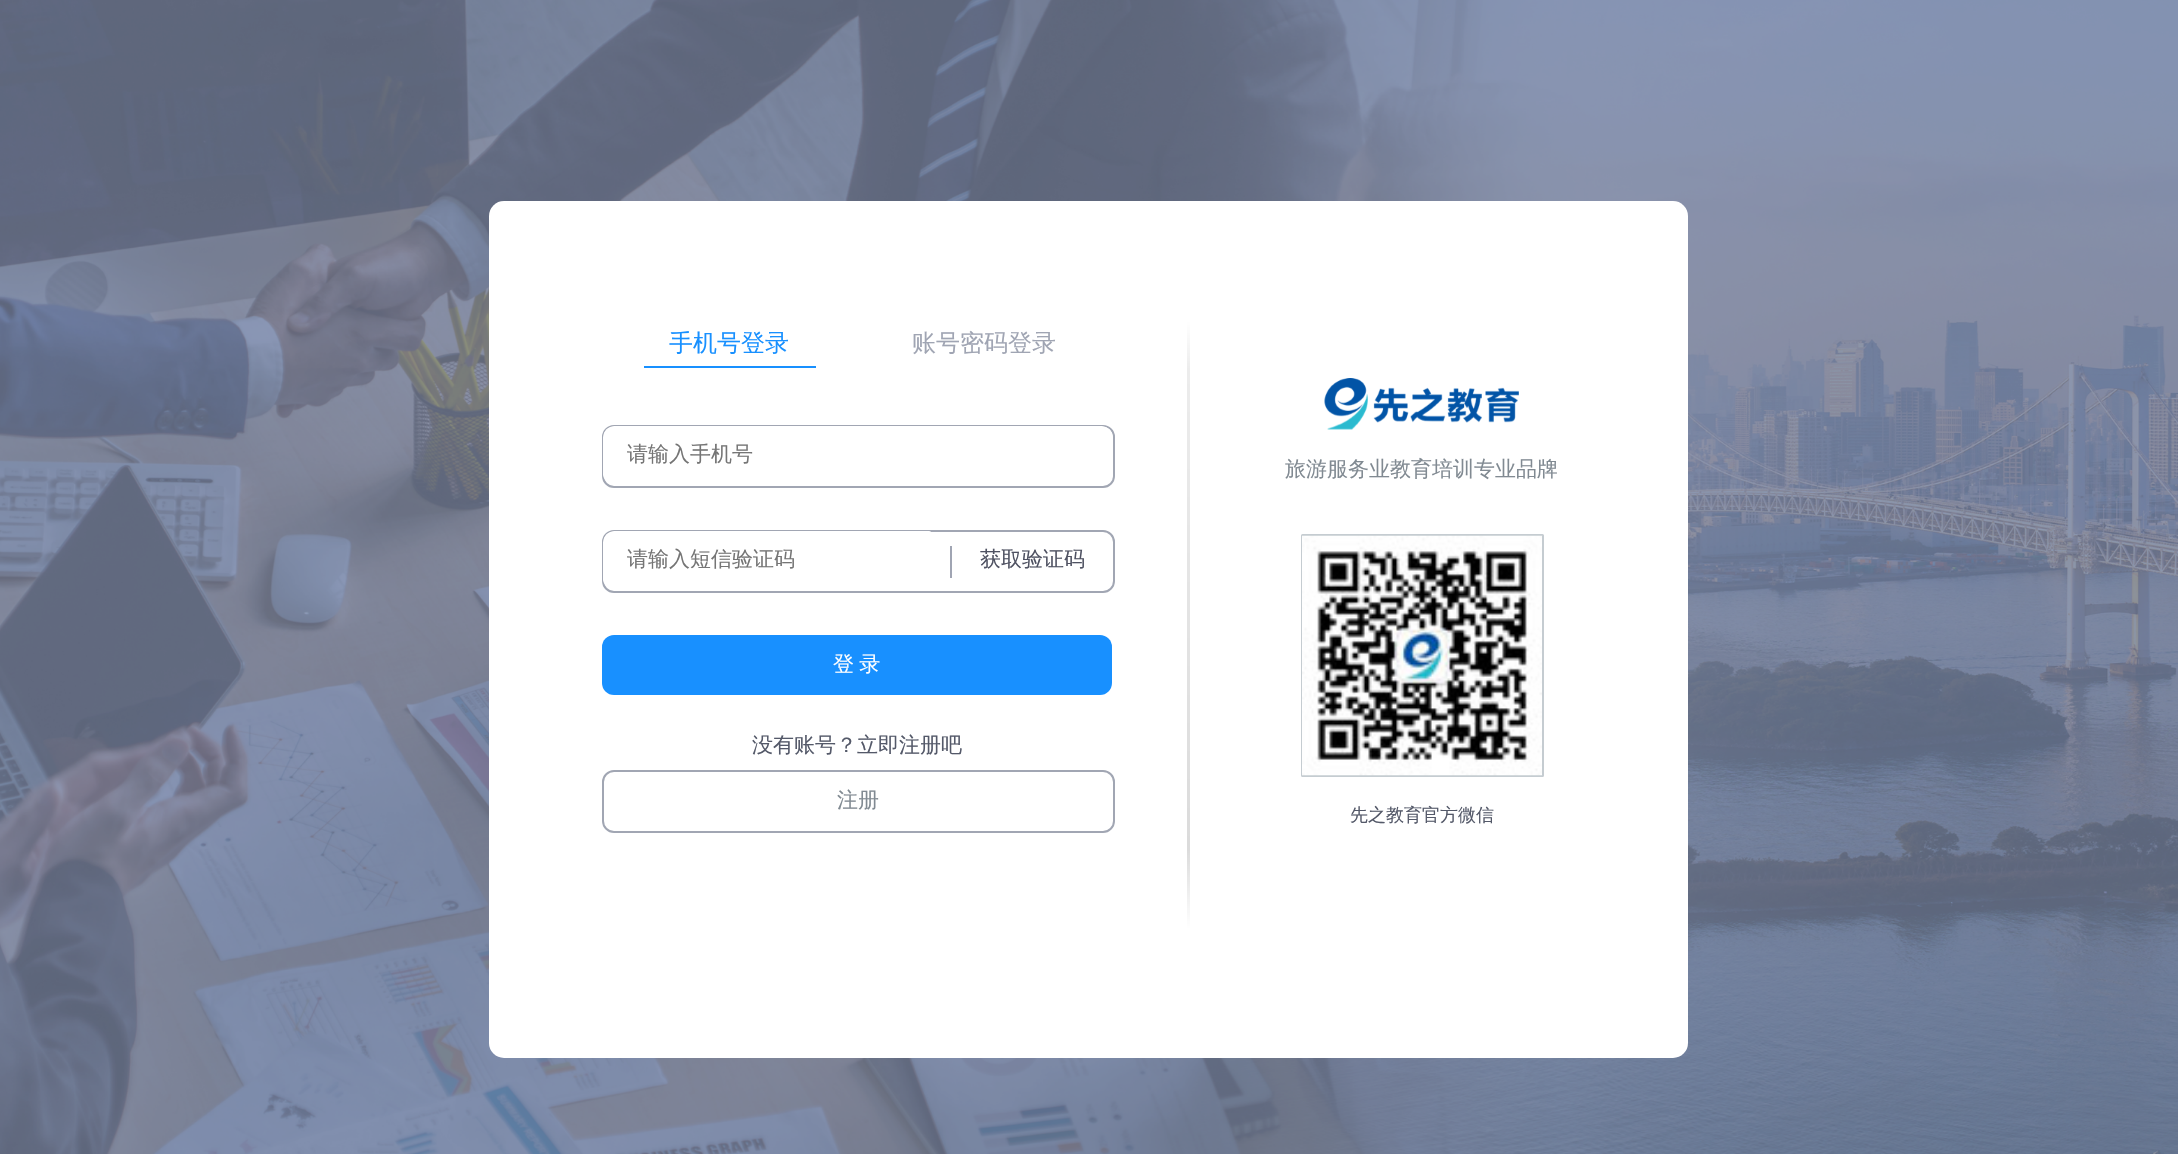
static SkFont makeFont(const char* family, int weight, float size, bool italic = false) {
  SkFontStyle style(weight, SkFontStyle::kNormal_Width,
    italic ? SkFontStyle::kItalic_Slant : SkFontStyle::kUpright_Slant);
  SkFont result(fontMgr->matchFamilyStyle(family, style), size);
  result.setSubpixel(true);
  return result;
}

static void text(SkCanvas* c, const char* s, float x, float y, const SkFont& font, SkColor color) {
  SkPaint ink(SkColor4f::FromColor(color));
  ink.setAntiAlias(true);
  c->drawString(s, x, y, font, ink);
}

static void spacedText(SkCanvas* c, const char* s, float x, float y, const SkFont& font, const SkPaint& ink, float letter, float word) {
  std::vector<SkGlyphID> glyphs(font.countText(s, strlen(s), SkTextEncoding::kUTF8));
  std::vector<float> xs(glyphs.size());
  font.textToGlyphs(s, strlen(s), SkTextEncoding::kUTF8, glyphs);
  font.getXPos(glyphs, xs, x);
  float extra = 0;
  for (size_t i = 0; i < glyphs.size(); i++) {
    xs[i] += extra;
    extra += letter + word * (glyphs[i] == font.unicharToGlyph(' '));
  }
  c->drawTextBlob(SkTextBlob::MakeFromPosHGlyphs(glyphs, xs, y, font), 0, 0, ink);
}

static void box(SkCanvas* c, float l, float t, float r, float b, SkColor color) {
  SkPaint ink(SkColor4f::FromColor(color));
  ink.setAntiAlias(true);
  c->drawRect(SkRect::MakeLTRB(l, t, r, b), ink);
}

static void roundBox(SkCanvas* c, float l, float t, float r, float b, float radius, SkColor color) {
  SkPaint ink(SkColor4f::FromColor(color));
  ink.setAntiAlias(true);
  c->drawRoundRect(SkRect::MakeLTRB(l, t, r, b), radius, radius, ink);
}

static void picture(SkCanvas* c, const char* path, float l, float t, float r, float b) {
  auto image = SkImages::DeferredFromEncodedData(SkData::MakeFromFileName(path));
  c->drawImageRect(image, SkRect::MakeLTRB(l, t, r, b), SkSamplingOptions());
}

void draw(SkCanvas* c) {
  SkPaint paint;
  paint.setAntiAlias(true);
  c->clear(0xffffffff);
  picture(c, "img_01.png", 0, 0, 2178, 1154);
  roundBox(c, 489, 201, 1688, 1058, 15, 0xffffffff);
  box(c, 644, 366, 816, 368, 0xff1890ff);
  SkFont face1 = makeFont("WenQuanYi Zen Hei", 500, 24);
  text(c, "手机号登录", 669, 351, face1, 0xff1890ff);
  text(c, "账号密码登录", 912, 351, face1, 0xffa0a5b3);
  paint.setStyle(SkPaint::kStroke_Style);
  paint.setStrokeWidth(2);
  paint.setColor(0xffa1a6b3);
  c->drawRoundRect(SkRect::MakeLTRB(603, 426, 1114, 487), 11, 11, paint);
  c->save();
  c->clipPath(SkPathBuilder().moveTo(614, 426).lineTo(1102, 426).cubicTo(1108, 426, 1113, 431, 1113, 437).lineTo(1113, 475).cubicTo(1113, 481, 1108, 486, 1102, 486).lineTo(614, 486).cubicTo(608, 486, 603, 481, 603, 475).lineTo(603, 437).cubicTo(603, 431, 608, 426, 614, 426).close().detach(), true);
  paint.setStyle(SkPaint::kFill_Style);
  paint.setColor(0xffffffff);
  c->drawPath(SkPathBuilder().moveTo(614, 426).lineTo(1102, 426).cubicTo(1108, 426, 1113, 431, 1113, 437).lineTo(1113, 475).cubicTo(1113, 478, 1111, 480, 1108, 480).lineTo(608, 480).cubicTo(605, 480, 603, 478, 603, 475).lineTo(603, 437).cubicTo(603, 431, 608, 426, 614, 426).close().detach(), paint);
  c->restore();
  SkFont face2 = makeFont("WenQuanYi Zen Hei", 500, 21);
  text(c, "请输入手机号", 627, 461, face2, 0xff757575);
  paint.setStyle(SkPaint::kStroke_Style);
  paint.setColor(0xffa1a6b3);
  c->drawRoundRect(SkRect::MakeLTRB(603, 531, 1114, 592), 11, 11, paint);
  c->save();
  c->clipPath(SkPathBuilder().moveTo(614, 531).lineTo(1102, 531).cubicTo(1108, 531, 1113, 536, 1113, 542).lineTo(1113, 580).cubicTo(1113, 586, 1108, 591, 1102, 591).lineTo(614, 591).cubicTo(608, 591, 603, 586, 603, 580).lineTo(603, 542).cubicTo(603, 536, 608, 531, 614, 531).close().detach(), true);
  paint.setStyle(SkPaint::kFill_Style);
  paint.setColor(0xffffffff);
  c->drawPath(SkPathBuilder().moveTo(614, 531).lineTo(928, 531).cubicTo(931, 531, 933, 533, 933, 536).lineTo(933, 580).cubicTo(933, 583, 931, 585, 928, 585).lineTo(608, 585).cubicTo(605, 585, 603, 583, 603, 580).lineTo(603, 542).cubicTo(603, 536, 608, 531, 614, 531).close().detach(), paint);
  c->restore();
  text(c, "请输入短信验证码", 627, 566, face2, 0xff757575);
  box(c, 950, 546, 952, 578, 0xffa0a5b3);
  text(c, "获取验证码", 980, 566, face2, 0xff4f5262);
  roundBox(c, 602, 635, 1112, 695, 12, 0xff1890ff);
  spacedText(c, "登 录", 833, 671, face2, paint, 0, -1);
  text(c, "没有账号？立即注册吧", 752, 752, face2, 0xff545969);
  paint.setStyle(SkPaint::kStroke_Style);
  paint.setColor(0xffa1a6b3);
  c->drawRoundRect(SkRect::MakeLTRB(603, 771, 1114, 832), 11, 11, paint);
  text(c, "注册", 837, 807, face2, 0xff818a92);
  paint.setStyle(SkPaint::kFill_Style);
  {
    const SkColor colors[] = {0xffffffff, 0xffececec, 0xffdbdbdb, 0xffffffff};
    const float stops[] = {0, 0.08f, 0.87f, 1};
    const SkPoint ends[] = {{1188, 321}, {1188, 929}};
    paint.setShader(SkGradientShader::MakeLinear(ends, colors, stops, 4, SkTileMode::kClamp));
    paint.setAlpha(255);
  }
  c->drawRect(SkRect::MakeLTRB(1187, 321, 1190, 929), paint);
  picture(c, "img_02.png", 1324, 378, 1519, 430);
  text(c, "旅游服务业教育培训专业品牌", 1285, 476, face2, 0xff818a92);
  paint.setStyle(SkPaint::kStroke_Style);
  paint.setShader(nullptr);
  paint.setColor(0xffc5ccd1);
  c->drawRoundRect(SkRect::MakeLTRB(1302, 535, 1543, 776), 0.5f, 0.5f, paint);
  picture(c, "img_03.png", 1302, 535, 1542, 776);
  SkFont face3 = makeFont("WenQuanYi Zen Hei", 500, 18);
  text(c, "先之教育官方微信", 1350, 821, face3, 0xff545969);
}
